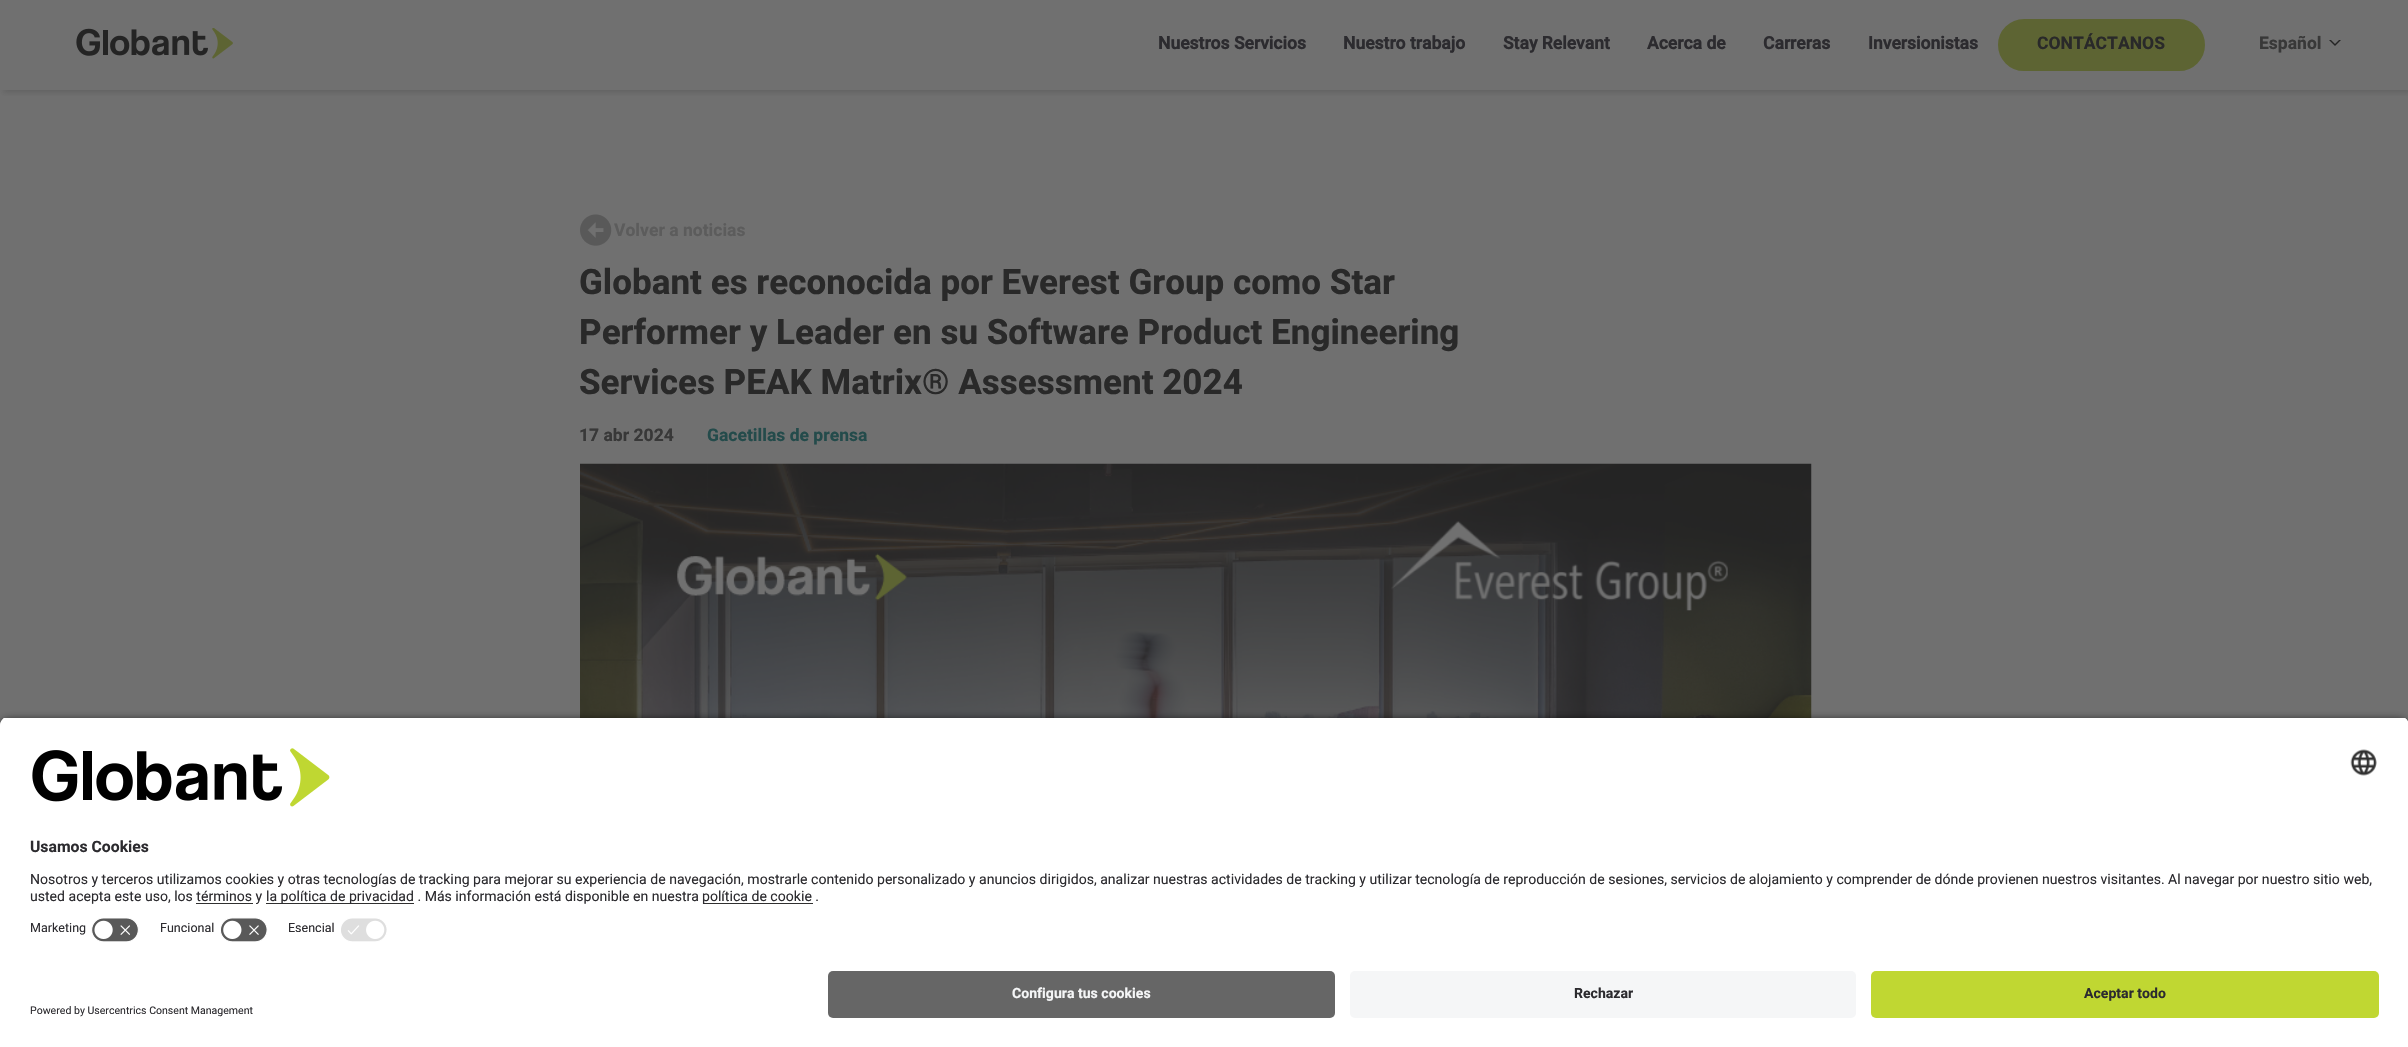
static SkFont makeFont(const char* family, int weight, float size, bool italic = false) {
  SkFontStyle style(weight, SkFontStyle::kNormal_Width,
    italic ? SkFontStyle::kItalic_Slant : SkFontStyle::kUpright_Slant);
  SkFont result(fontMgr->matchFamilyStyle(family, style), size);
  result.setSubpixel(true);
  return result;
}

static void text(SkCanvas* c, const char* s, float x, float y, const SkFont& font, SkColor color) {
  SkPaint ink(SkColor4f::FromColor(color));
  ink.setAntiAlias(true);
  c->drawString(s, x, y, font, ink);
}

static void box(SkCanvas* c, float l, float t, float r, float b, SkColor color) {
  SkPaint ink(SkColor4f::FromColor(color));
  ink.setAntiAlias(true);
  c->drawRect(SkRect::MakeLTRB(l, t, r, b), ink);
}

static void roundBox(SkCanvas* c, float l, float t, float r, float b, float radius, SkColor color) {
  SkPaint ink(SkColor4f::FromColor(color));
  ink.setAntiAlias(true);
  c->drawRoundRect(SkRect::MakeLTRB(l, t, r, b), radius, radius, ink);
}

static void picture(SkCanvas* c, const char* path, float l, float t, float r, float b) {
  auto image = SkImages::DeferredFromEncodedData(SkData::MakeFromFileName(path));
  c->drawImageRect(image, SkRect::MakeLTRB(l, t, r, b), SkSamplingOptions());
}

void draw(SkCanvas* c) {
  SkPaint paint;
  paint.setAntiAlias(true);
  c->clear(0xff707070);
  c->save();
  c->clipRect(SkRect::MakeLTRB(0, 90, 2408, 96));
  paint.setColor(0x2b242424);
  paint.setMaskFilter(SkMaskFilter::MakeBlur(kNormal_SkBlurStyle, 2.5f));
  c->drawRect(SkRect::MakeLTRB(3, 3, 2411, 93), paint);
  paint.setMaskFilter(nullptr);
  c->restore();
  picture(c, "img_01.png", 76, 28, 233, 59);
  SkFont face1 = makeFont("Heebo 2", 700, 17.5f);
  text(c, "Nuestros Servicios", 1158, 49, face1, 0xff2c2b2f);
  text(c, "Nuestro trabajo", 1343, 49, face1, 0xff2c2b2f);
  text(c, "Stay Relevant", 1503, 49, face1, 0xff2c2b2f);
  text(c, "Acerca de", 1647, 49, face1, 0xff2c2b2f);
  text(c, "Carreras", 1763, 49, face1, 0xff2c2b2f);
  text(c, "Inversionistas", 1868, 49, face1, 0xff2c2b2f);
  paint.setColor(0xff5d6433);
  c->drawRoundRect(SkRect::MakeLTRB(1999.5f, 20.5f, 2203.5f, 69.5f), 24.5f, 24.5f, paint);
  paint.setStyle(SkPaint::kStroke_Style);
  paint.setStrokeWidth(3);
  c->drawRoundRect(SkRect::MakeLTRB(1999.5f, 20.5f, 2203.5f, 69.5f), 24.5f, 24.5f, paint);
  SkFont face2 = makeFont("Heebo", 700, 17.5f);
  text(c, "CONTÁCTANOS", 2037, 49, face2, 0xff292929);
  text(c, "Español", 2259, 49, face2, 0xff383838);
  paint.setStyle(SkPaint::kFill_Style);
  paint.setColor(0xff242424);
  c->drawPath(SkPathBuilder().moveTo(2329, 40).lineTo(2341, 40).lineTo(2335, 46).close().detach(), paint);
  paint.setColor(0xff707070);
  c->drawPath(SkPathBuilder().moveTo(2331, 40).lineTo(2339, 40).lineTo(2335, 44).close().detach(), paint);
  picture(c, "img_02.png", 580, 214, 612, 246);
  text(c, "Volver a noticias", 614, 236, face2, 0xff5c5c5c);
  SkFont face3 = makeFont("Heebo", 700, 35);
  text(c, "Globant es reconocida por Everest Group como Star", 579, 294, face3, 0xff292929);
  text(c, "Performer y Leader en su Software Product Engineering", 579, 344, face3, 0xff292929);
  text(c, "Services PEAK Matrix® Assessment 2024", 579, 394, face3, 0xff292929);
  text(c, "17 abr 2024", 579, 441, face2, 0xff383838);
  text(c, "Gacetillas de prensa", 707, 441, face2, 0xff244b4b);
  picture(c, "img_03.png", 580, 463, 1812, 718);
  paint.setColor(0xcc000000);
  paint.setMaskFilter(SkMaskFilter::MakeBlur(kNormal_SkBlurStyle, 4.5f));
  c->drawRoundRect(SkRect::MakeLTRB(0, 720, 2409, 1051), 10, 10, paint);
  paint.setMaskFilter(nullptr);
  c->save();
  c->clipPath(SkPathBuilder().moveTo(10, 716).lineTo(2399, 716).cubicTo(2404.5f, 716, 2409, 720.5f, 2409, 726).lineTo(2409, 961).lineTo(0, 961).lineTo(0, 726).cubicTo(0, 720.5f, 4.5f, 716, 10, 716).close().detach(), true);
  box(c, 0, 718, 2408, 961, 0xffffffff);
  box(c, 0, 718, 2408, 911, 0xffffffff);
  c->restore();
  picture(c, "img_04.png", 32, 748, 330, 807);
  picture(c, "img_05.png", 2350, 749, 2377, 776);
  SkFont face4 = makeFont("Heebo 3", 700, 15.75f);
  text(c, "Usamos Cookies", 30, 852, face4, 0xff2c2b2f);
  SkFont face5 = makeFont("Heebo", 400, 14.06f);
  text(c, "Nosotros y terceros utilizamos cookies y otras tecnologías de tracking para mejorar su experiencia de navegación, mostrarle contenido personalizado y anuncios dirigidos, analizar nuestras actividades de tracking y utilizar tecnología de reproducción de sesiones, servicios de alojamiento y comprender de dónde provienen nuestros visitantes. Al navegar por nuestro sitio web,", 30, 884, face5, 0xff2c2b2f);
  text(c, "usted acepta este uso, los términos y", 30, 901, face5, 0xff2c2b2f);
  box(c, 196, 903, 253, 904, 0xff303030);
  box(c, 266, 903, 414, 904, 0xff303030);
  text(c, "la política de privacidad . Más información está disponible en nuestra", 266, 901, face5, 0xff2c2b2f);
  box(c, 703, 903, 813, 904, 0xff303030);
  text(c, "política de cookie .", 702, 901, face5, 0xff2c2b2f);
  SkFont face6 = makeFont("Heebo", 400, 12.5f);
  text(c, "Marketing", 30, 932, face6, 0xff2c2b2f);
  picture(c, "img_06.png", 91, 918, 139, 942);
  text(c, "Funcional", 160, 932, face6, 0xff2c2b2f);
  picture(c, "img_07.png", 220, 917, 268, 942);
  text(c, "Esencial", 288, 932, face6, 0xff2c2b2f);
  picture(c, "img_08.png", 341, 918, 387, 942);
  box(c, 0, 961, 2408, 1047, 0xffffffff);
  roundBox(c, 828, 971, 1335, 1018, 5, 0xff666666);
  SkFont face7 = makeFont("Heebo 3", 700, 14.06f);
  text(c, "Configura tus cookies", 1012, 998, face7, 0xfff5f6f7);
  roundBox(c, 1350, 971, 1856, 1018, 5, 0xfff5f6f7);
  text(c, "Rechazar", 1574, 998, face7, 0xff2c2b2f);
  roundBox(c, 1871, 971, 2379, 1018, 5, 0xffc0d732);
  text(c, "Aceptar todo", 2084, 998, face7, 0xff2c2b2f);
  SkFont face8 = makeFont("Heebo", 400, 10.55f);
  text(c, "Powered by Usercentrics Consent Management", 30, 1014, face8, 0xff2c2b2f);
}
